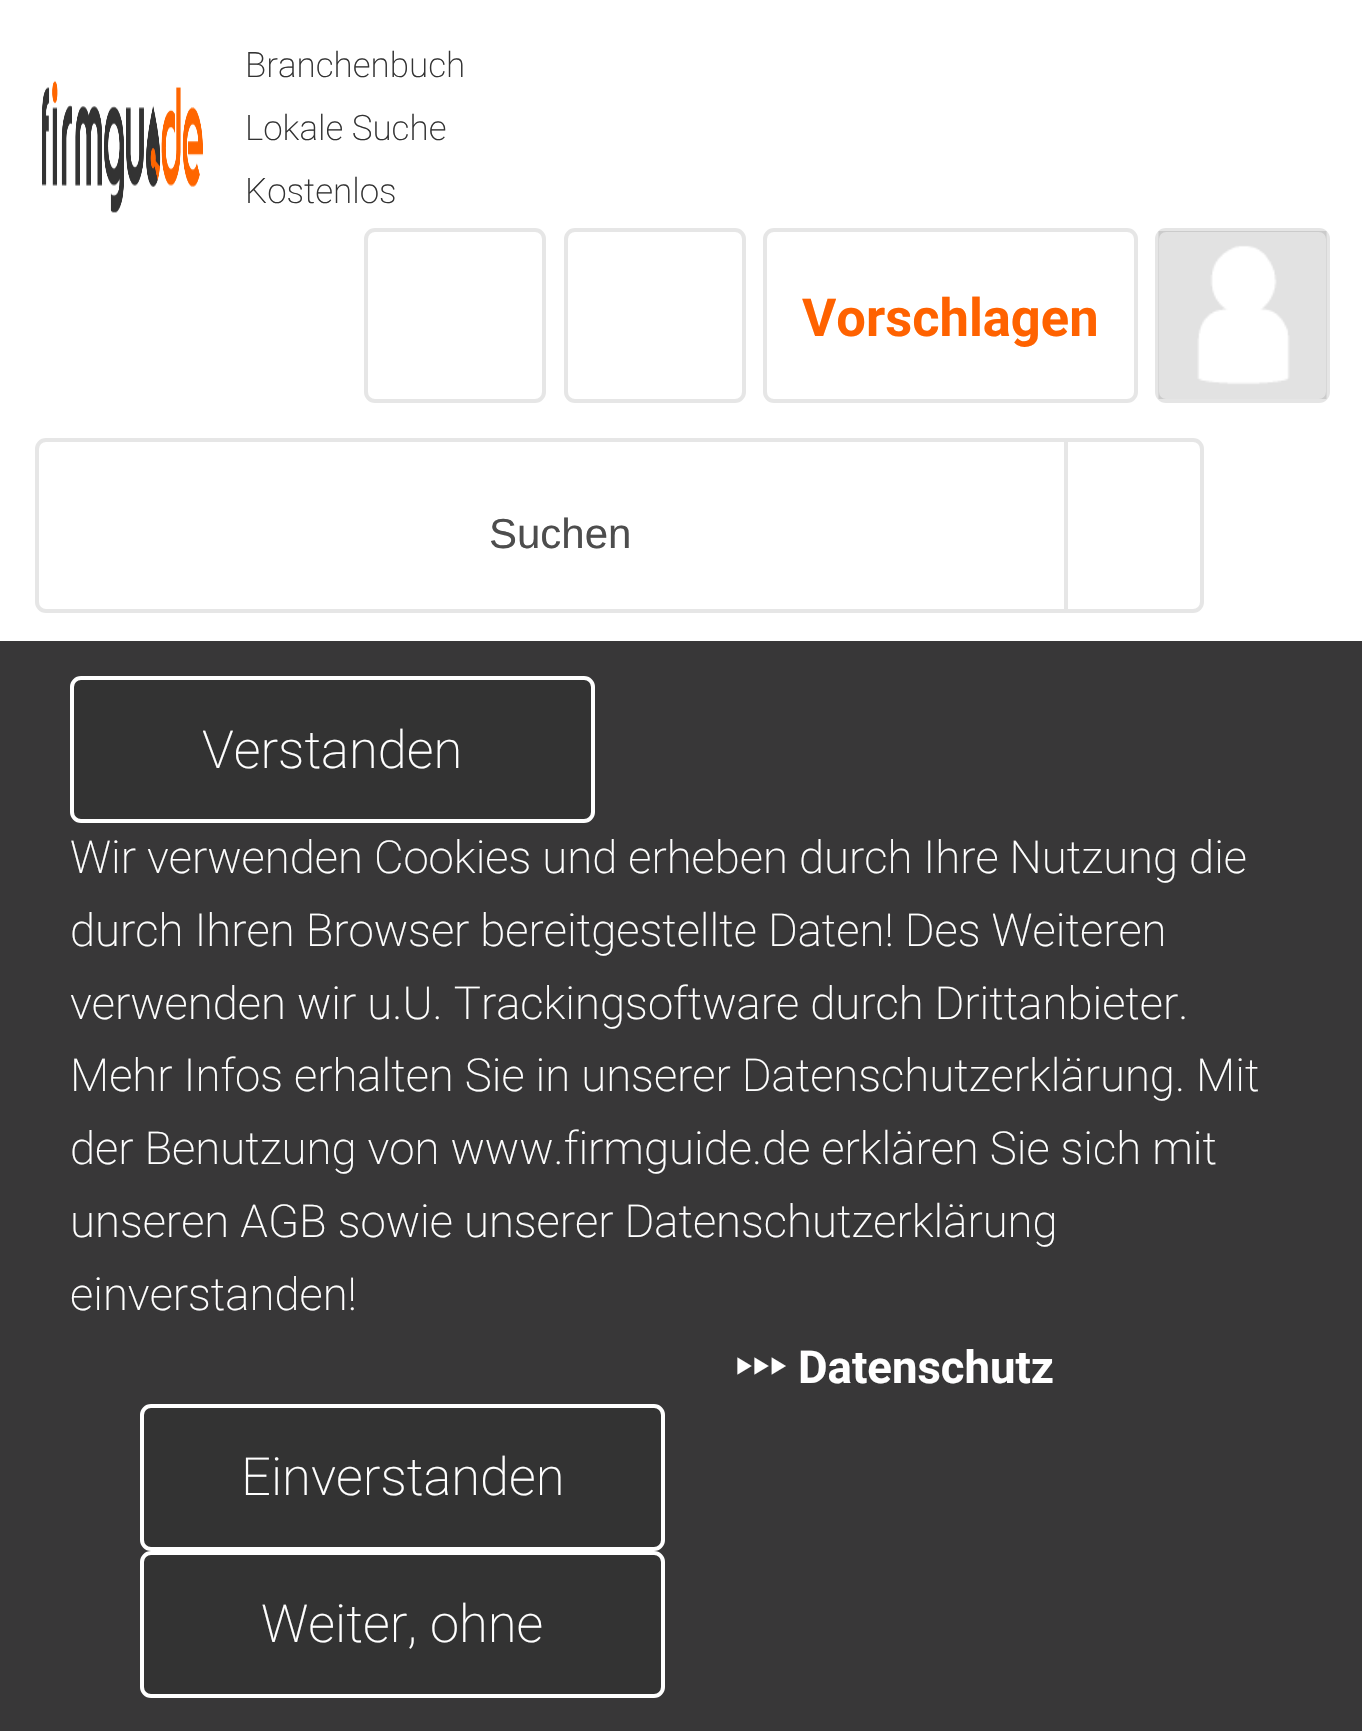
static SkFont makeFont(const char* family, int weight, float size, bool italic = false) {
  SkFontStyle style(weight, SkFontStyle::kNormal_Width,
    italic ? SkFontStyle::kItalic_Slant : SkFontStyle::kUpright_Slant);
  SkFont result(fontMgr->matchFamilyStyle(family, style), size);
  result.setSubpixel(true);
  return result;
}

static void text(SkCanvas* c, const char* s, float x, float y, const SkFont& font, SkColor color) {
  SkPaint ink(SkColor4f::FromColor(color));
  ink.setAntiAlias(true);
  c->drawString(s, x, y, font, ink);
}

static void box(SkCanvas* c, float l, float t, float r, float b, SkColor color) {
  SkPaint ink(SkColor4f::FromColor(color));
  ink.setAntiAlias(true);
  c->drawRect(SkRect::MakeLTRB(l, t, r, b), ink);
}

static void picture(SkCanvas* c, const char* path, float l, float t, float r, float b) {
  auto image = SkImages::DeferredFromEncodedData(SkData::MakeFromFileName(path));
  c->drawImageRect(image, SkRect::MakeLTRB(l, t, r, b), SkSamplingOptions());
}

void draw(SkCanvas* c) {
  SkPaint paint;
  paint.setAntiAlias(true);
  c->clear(0xffffffff);
  picture(c, "img_01.png", 42, 80, 203, 213);
  SkFont face1 = makeFont("Roboto", 200, 35);
  text(c, "Branchenbuch", 245, 77, face1, 0xff333333);
  text(c, "Lokale Suche", 245, 140, face1, 0xff333333);
  text(c, "Kostenlos", 245, 203, face1, 0xff333333);
  paint.setStyle(SkPaint::kStroke_Style);
  paint.setStrokeWidth(4);
  paint.setColor(0xffe6e6e6);
  c->drawRoundRect(SkRect::MakeLTRB(366, 230, 544, 401), 9, 9, paint);
  c->drawRoundRect(SkRect::MakeLTRB(566, 230, 744, 401), 9, 9, paint);
  c->drawRoundRect(SkRect::MakeLTRB(765, 230, 1136, 401), 9, 9, paint);
  SkFont face2 = makeFont("Roboto", 700, 52.5f);
  text(c, "Vorschlagen", 802, 336, face2, 0xffff6200);
  picture(c, "img_02.png", 1158, 231, 1327, 399);
  paint.setColor(0x1a000000);
  c->drawRoundRect(SkRect::MakeLTRB(1157, 230, 1328, 401), 9, 9, paint);
  paint.setColor(0xffe6e6e6);
  c->drawPath(SkPathBuilder().moveTo(46, 440).lineTo(1083, 440).lineTo(1083, 611).lineTo(46, 611).cubicTo(41, 611, 37, 607, 37, 602).lineTo(37, 449).cubicTo(37, 444, 41, 440, 46, 440).close().detach(), paint);
  SkFont face3 = makeFont("Liberation Sans", 400, 42);
  text(c, "Suchen", 489, 548, face3, 0xff4d4d4d);
  paint.setStyle(SkPaint::kFill_Style);
  paint.setColor(0xffffffff);
  c->drawPath(SkPathBuilder().moveTo(1066, 440).lineTo(1193, 440).cubicTo(1198, 440, 1202, 444, 1202, 449).lineTo(1202, 602).cubicTo(1202, 607, 1198, 611, 1193, 611).lineTo(1066, 611).close().detach(), paint);
  paint.setStyle(SkPaint::kStroke_Style);
  paint.setColor(0xffe6e6e6);
  c->drawPath(SkPathBuilder().moveTo(1066, 440).lineTo(1193, 440).cubicTo(1198, 440, 1202, 444, 1202, 449).lineTo(1202, 602).cubicTo(1202, 607, 1198, 611, 1193, 611).lineTo(1066, 611).close().detach(), paint);
  box(c, 0, 641, 1362, 1731, 0xff383738);
  paint.setStyle(SkPaint::kFill_Style);
  paint.setColor(0xff333333);
  c->drawRoundRect(SkRect::MakeLTRB(72, 678, 593, 821), 9, 9, paint);
  paint.setStyle(SkPaint::kStroke_Style);
  paint.setColor(0xffffffff);
  c->drawRoundRect(SkRect::MakeLTRB(72, 678, 593, 821), 9, 9, paint);
  SkFont face4 = makeFont("Roboto", 200, 52.5f);
  text(c, "Verstanden", 202, 768, face4, 0xffffffff);
  SkFont face5 = makeFont("Roboto", 200, 45.5f);
  text(c, "Wir verwenden Cookies und erheben durch Ihre Nutzung die", 70, 873, face5, 0xffffffff);
  text(c, "durch Ihren Browser bereitgestellte Daten! Des Weiteren", 70, 946, face5, 0xffffffff);
  text(c, "verwenden wir u.U. Trackingsoftware durch Drittanbieter.", 70, 1019, face5, 0xffffffff);
  text(c, "Mehr Infos erhalten Sie in unserer Datenschutzerklärung. Mit", 70, 1091, face5, 0xffffffff);
  text(c, "der Benutzung von www.firmguide.de erklären Sie sich mit", 70, 1164, face5, 0xffffffff);
  text(c, "unseren AGB sowie unserer Datenschutzerklärung", 70, 1237, face5, 0xffffffff);
  text(c, "einverstanden!", 70, 1310, face5, 0xffffffff);
  SkFont face6 = makeFont("Noto Sans", 700, 45.5f);
  text(c, "‣‣‣", 735, 1383, face6, 0xffffffff);
  SkFont face7 = makeFont("Roboto", 700, 45.5f);
  text(c, "Datenschutz", 798, 1383, face7, 0xffffffff);
  paint.setStyle(SkPaint::kFill_Style);
  paint.setColor(0xff333333);
  c->drawRoundRect(SkRect::MakeLTRB(142, 1406, 663, 1549), 9, 9, paint);
  paint.setStyle(SkPaint::kStroke_Style);
  paint.setColor(0xffffffff);
  c->drawRoundRect(SkRect::MakeLTRB(142, 1406, 663, 1549), 9, 9, paint);
  text(c, "Einverstanden", 241, 1495, face4, 0xffffffff);
  paint.setStyle(SkPaint::kFill_Style);
  paint.setColor(0xff333333);
  c->drawRoundRect(SkRect::MakeLTRB(142, 1553, 663, 1696), 9, 9, paint);
  paint.setStyle(SkPaint::kStroke_Style);
  paint.setColor(0xffffffff);
  c->drawRoundRect(SkRect::MakeLTRB(142, 1553, 663, 1696), 9, 9, paint);
  text(c, "Weiter, ohne", 261, 1642, face4, 0xffffffff);
}
